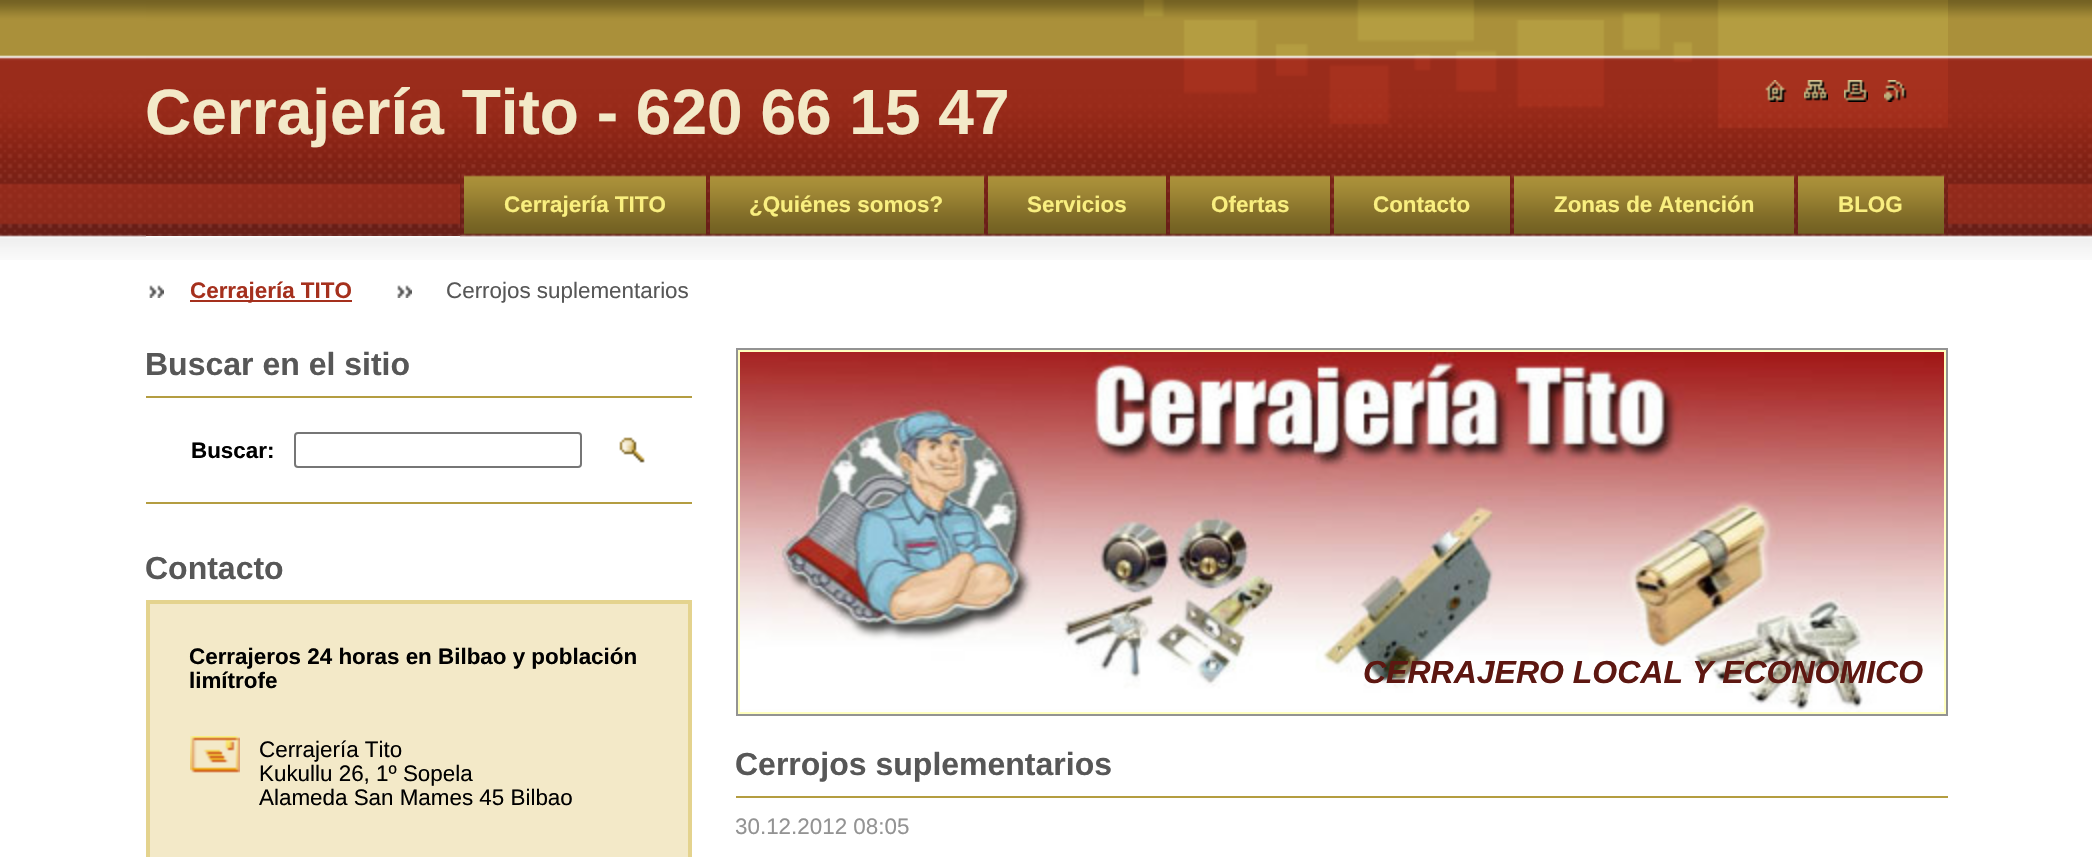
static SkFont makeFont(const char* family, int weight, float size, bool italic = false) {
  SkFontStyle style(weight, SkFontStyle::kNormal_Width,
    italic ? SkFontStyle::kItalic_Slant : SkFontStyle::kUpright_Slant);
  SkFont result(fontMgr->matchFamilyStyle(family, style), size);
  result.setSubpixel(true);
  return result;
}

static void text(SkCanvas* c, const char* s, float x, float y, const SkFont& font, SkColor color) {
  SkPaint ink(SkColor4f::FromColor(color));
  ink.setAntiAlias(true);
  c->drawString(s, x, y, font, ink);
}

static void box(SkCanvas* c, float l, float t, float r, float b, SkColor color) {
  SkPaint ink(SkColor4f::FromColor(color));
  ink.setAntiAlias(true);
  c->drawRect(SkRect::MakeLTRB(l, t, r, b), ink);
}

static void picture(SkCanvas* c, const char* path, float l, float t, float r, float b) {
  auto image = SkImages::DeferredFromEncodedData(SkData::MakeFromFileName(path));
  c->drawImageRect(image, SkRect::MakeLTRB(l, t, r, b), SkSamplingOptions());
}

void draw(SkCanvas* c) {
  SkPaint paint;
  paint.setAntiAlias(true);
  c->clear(0xffffffff);
  picture(c, "img_01.png", 0, 0, 2092, 260);
  picture(c, "img_02.png", 146, 0, 1948, 236);
  SkFont face1 = makeFont("Liberation Sans", 700, 64);
  text(c, "Cerrajería Tito - 620 66 15 47", 145, 134, face1, 0xfff3e9c8);
  picture(c, "img_03.png", 1765, 80, 1787, 102);
  picture(c, "img_04.png", 1804, 80, 1828, 101);
  picture(c, "img_05.png", 1844, 80, 1868, 102);
  picture(c, "img_06.png", 1884, 80, 1907, 102);
  picture(c, "img_15.png", 146, 236, 1948, 260);
  picture(c, "img_07.png", 460, 164, 1948, 237);
  picture(c, "img_08.png", 464, 175, 706, 235);
  SkFont face2 = makeFont("Liberation Sans", 700, 22.4f);
  text(c, "Cerrajería TITO", 504, 212, face2, 0xfff9ef7f);
  picture(c, "img_09.png", 710, 175, 984, 235);
  text(c, "¿Quiénes somos?", 749, 212, face2, 0xfff9ef7f);
  picture(c, "img_10.png", 988, 175, 1166, 235);
  text(c, "Servicios", 1027, 212, face2, 0xfff9ef7f);
  picture(c, "img_11.png", 1170, 175, 1330, 235);
  text(c, "Ofertas", 1211, 212, face2, 0xfff9ef7f);
  picture(c, "img_12.png", 1334, 175, 1510, 235);
  text(c, "Contacto", 1373, 212, face2, 0xfff9ef7f);
  picture(c, "img_13.png", 1514, 175, 1794, 235);
  text(c, "Zonas de Atención", 1554, 212, face2, 0xfff9ef7f);
  picture(c, "img_14.png", 1798, 175, 1944, 235);
  text(c, "BLOG", 1838, 212, face2, 0xfff9ef7f);
  picture(c, "img_16.png", 149, 285, 164, 298);
  box(c, 190, 300, 352, 302, 0xffa5301d);
  text(c, "Cerrajería TITO", 190, 298, face2, 0xffa5301d);
  picture(c, "img_16.png", 397, 285, 412, 298);
  SkFont face3 = makeFont("Liberation Sans", 400, 22.4f);
  text(c, "Cerrojos suplementarios", 446, 298, face3, 0xff575757);
  SkFont face4 = makeFont("Liberation Sans", 700, 32);
  text(c, "Buscar en el sitio", 145, 375, face4, 0xff575757);
  box(c, 146, 396, 692, 398, 0xffb49d41);
  box(c, 146, 502, 692, 504, 0xffb49d41);
  text(c, "Buscar:", 191, 458, face2, 0xff000000);
  paint.setStyle(SkPaint::kStroke_Style);
  paint.setStrokeWidth(2);
  paint.setColor(0xff767676);
  c->drawRoundRect(SkRect::MakeLTRB(295, 433, 581, 467), 3, 3, paint);
  picture(c, "img_17.png", 619, 437, 645, 463);
  text(c, "Contacto", 145, 579, face4, 0xff575757);
  paint.setStyle(SkPaint::kFill_Style);
  paint.setColor(0xfff3e9c8);
  c->drawRect(SkRect::MakeLTRB(148, 602, 690, 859), paint);
  paint.setStyle(SkPaint::kStroke_Style);
  paint.setStrokeWidth(4);
  paint.setColor(0xffe4d38e);
  c->drawRect(SkRect::MakeLTRB(148, 602, 690, 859), paint);
  text(c, "Cerrajeros 24 horas en Bilbao y población", 189, 664, face2, 0xff000000);
  text(c, "limítrofe", 189, 688, face2, 0xff000000);
  picture(c, "img_18.png", 190, 736, 240, 773);
  text(c, "Cerrajería Tito", 259, 757, face3, 0xff000000);
  text(c, "Kukullu 26, 1º Sopela", 259, 781, face3, 0xff000000);
  text(c, "Alameda San Mames 45 Bilbao", 259, 805, face3, 0xff000000);
  paint.setStrokeWidth(2);
  paint.setColor(0xff939393);
  c->drawRect(SkRect::MakeLTRB(737, 349, 1947, 715), paint);
  paint.setColor(0xffffffbe);
  c->drawRect(SkRect::MakeLTRB(739, 351, 1945, 713), paint);
  picture(c, "img_19.png", 740, 352, 1944, 712);
  SkFont face5 = makeFont("Liberation Sans", 700, 32, true);
  text(c, "CERRAJERO LOCAL Y ECONOMICO", 1363, 683, face5, 0xff5d1711);
  text(c, "Cerrojos suplementarios", 735, 775, face4, 0xff575757);
  box(c, 736, 796, 1948, 798, 0xffb49d40);
  text(c, "30.12.2012 08:05", 735, 834, face3, 0xff939393);
}
